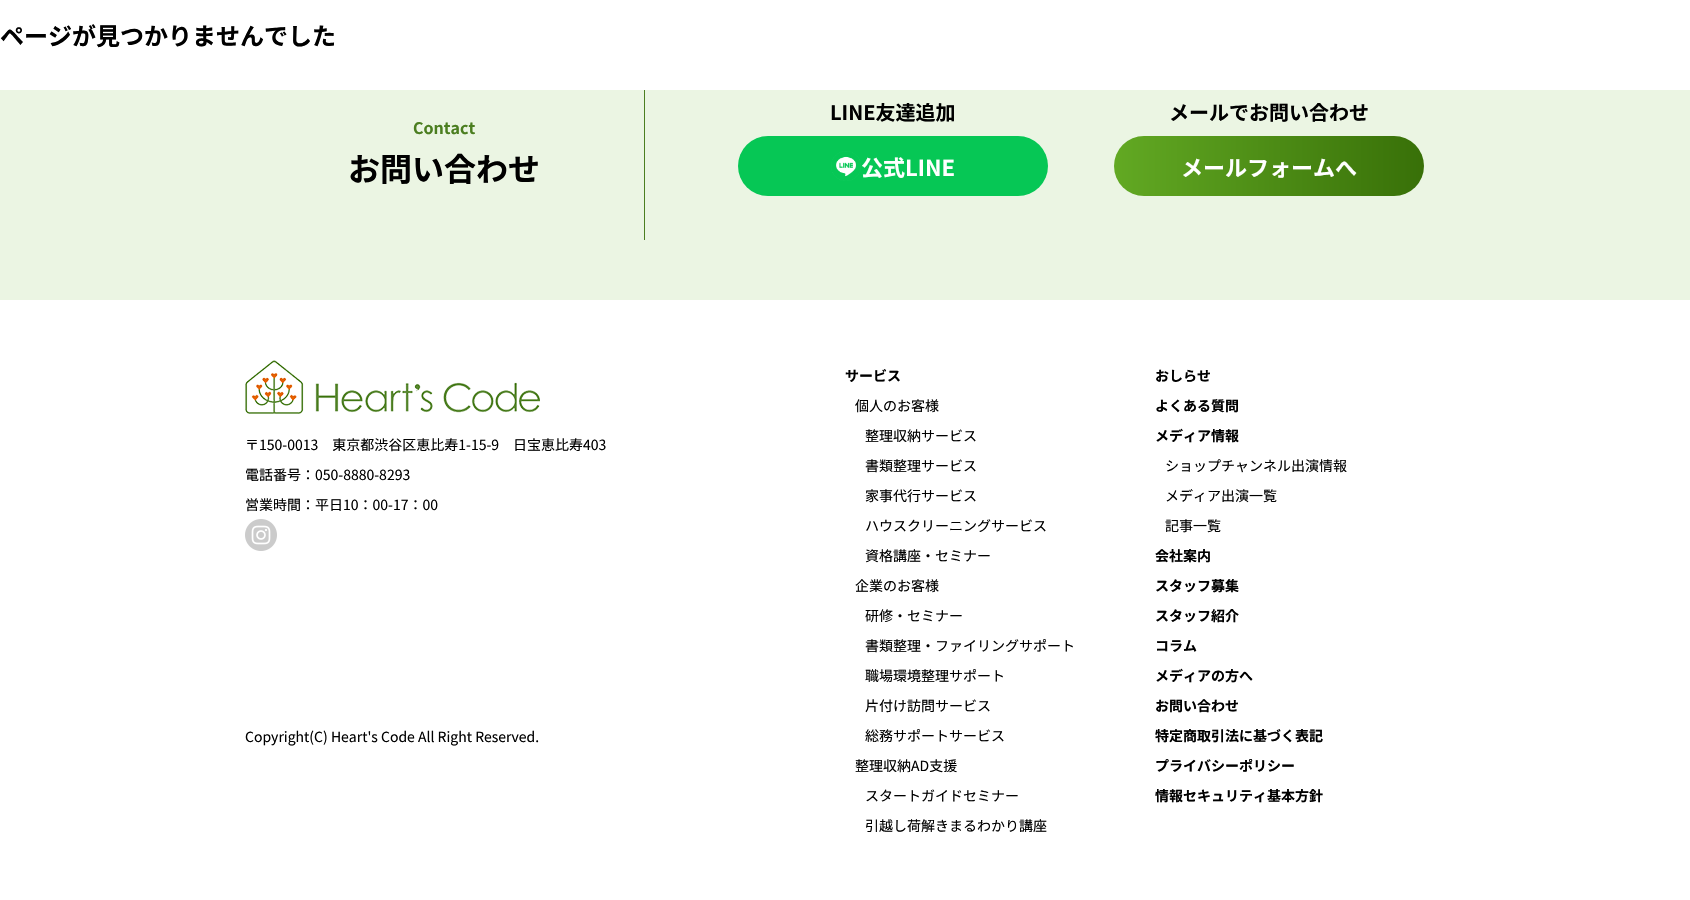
static SkFont makeFont(const char* family, int weight, float size, bool italic = false) {
  SkFontStyle style(weight, SkFontStyle::kNormal_Width,
    italic ? SkFontStyle::kItalic_Slant : SkFontStyle::kUpright_Slant);
  SkFont result(fontMgr->matchFamilyStyle(family, style), size);
  result.setSubpixel(true);
  return result;
}

static void text(SkCanvas* c, const char* s, float x, float y, const SkFont& font, SkColor color) {
  SkPaint ink(SkColor4f::FromColor(color));
  ink.setAntiAlias(true);
  c->drawString(s, x, y, font, ink);
}

static void box(SkCanvas* c, float l, float t, float r, float b, SkColor color) {
  SkPaint ink(SkColor4f::FromColor(color));
  ink.setAntiAlias(true);
  c->drawRect(SkRect::MakeLTRB(l, t, r, b), ink);
}

static void roundBox(SkCanvas* c, float l, float t, float r, float b, float radius, SkColor color) {
  SkPaint ink(SkColor4f::FromColor(color));
  ink.setAntiAlias(true);
  c->drawRoundRect(SkRect::MakeLTRB(l, t, r, b), radius, radius, ink);
}

static void picture(SkCanvas* c, const char* path, float l, float t, float r, float b) {
  auto image = SkImages::DeferredFromEncodedData(SkData::MakeFromFileName(path));
  c->drawImageRect(image, SkRect::MakeLTRB(l, t, r, b), SkSamplingOptions());
}

void draw(SkCanvas* c) {
  SkPaint paint;
  paint.setAntiAlias(true);
  c->clear(0xffffffff);
  SkFont face1 = makeFont("Noto Sans JP", 700, 24);
  text(c, "ページが見つかりませんでした", 0, 45, face1, 0xff000000);
  box(c, 0, 90, 1690, 300, 0xffebf5e3);
  box(c, 644, 90, 645, 240, 0xff4b7e20);
  SkFont face2 = makeFont("Noto Sans JP", 700, 16);
  text(c, "Contact", 413, 134, face2, 0xff4b7e20);
  SkFont face3 = makeFont("Noto Sans JP", 700, 32);
  text(c, "お問い合わせ", 348, 181, face3, 0xff000000);
  SkFont face4 = makeFont("Noto Sans JP", 700, 20);
  text(c, "LINE友達追加", 830, 120, face4, 0xff000000);
  roundBox(c, 738, 136, 1048, 196, 30, 0xff06c755);
  picture(c, "img_01.png", 831, 151, 861, 181);
  SkFont face5 = makeFont("Noto Sans JP", 700, 22);
  text(c, "公式LINE", 861, 176, face5, 0xffffffff);
  text(c, "メールでお問い合わせ", 1169, 120, face4, 0xff000000);
  {
    const SkColor colors[] = {0xff62a923, 0xff387008};
    const float stops[] = {0, 1};
    const SkPoint ends[] = {{1114, 166}, {1424, 166}};
    paint.setShader(SkGradientShader::MakeLinear(ends, colors, stops, 2, SkTileMode::kClamp));
    paint.setAlpha(255);
  }
  c->drawRoundRect(SkRect::MakeLTRB(1114, 136, 1424, 196), 30, 30, paint);
  text(c, "メールフォームへ", 1181, 176, face5, 0xffffffff);
  picture(c, "img_02.png", 245, 360, 540, 414);
  SkFont face6 = makeFont("Noto Sans JP", 400, 14);
  text(c, "〒150-0013　東京都渋谷区恵比寿1-15-9　日宝恵比寿403", 245, 450, face6, 0xff000000);
  text(c, "電話番号：050-8880-8293", 245, 480, face6, 0xff000000);
  text(c, "営業時間：平日10：00-17：00", 245, 510, face6, 0xff000000);
  picture(c, "img_03.png", 245, 519, 277, 551);
  text(c, "Copyright(C) Heart's Code All Right Reserved.", 245, 742, face6, 0xff000000);
  SkFont face7 = makeFont("Noto Sans JP", 700, 14);
  text(c, "サービス", 845, 381, face7, 0xff000000);
  text(c, "個人のお客様", 855, 411, face6, 0xff000000);
  text(c, "整理収納サービス", 865, 441, face6, 0xff000000);
  text(c, "書類整理サービス", 865, 471, face6, 0xff000000);
  text(c, "家事代行サービス", 865, 501, face6, 0xff000000);
  text(c, "ハウスクリーニングサービス", 865, 531, face6, 0xff000000);
  text(c, "資格講座・セミナー", 865, 561, face6, 0xff000000);
  text(c, "企業のお客様", 855, 591, face6, 0xff000000);
  text(c, "研修・セミナー", 865, 621, face6, 0xff000000);
  text(c, "書類整理・ファイリングサポート", 865, 651, face6, 0xff000000);
  text(c, "職場環境整理サポート", 865, 681, face6, 0xff000000);
  text(c, "片付け訪問サービス", 865, 711, face6, 0xff000000);
  text(c, "総務サポートサービス", 865, 741, face6, 0xff000000);
  text(c, "整理収納AD支援", 855, 771, face6, 0xff000000);
  text(c, "スタートガイドセミナー", 865, 801, face6, 0xff000000);
  text(c, "引越し荷解きまるわかり講座", 865, 831, face6, 0xff000000);
  text(c, "おしらせ", 1155, 381, face7, 0xff000000);
  text(c, "よくある質問", 1155, 411, face7, 0xff000000);
  text(c, "メディア情報", 1155, 441, face7, 0xff000000);
  text(c, "ショップチャンネル出演情報", 1165, 471, face6, 0xff000000);
  text(c, "メディア出演一覧", 1165, 501, face6, 0xff000000);
  text(c, "記事一覧", 1165, 531, face6, 0xff000000);
  text(c, "会社案内", 1155, 561, face7, 0xff000000);
  text(c, "スタッフ募集", 1155, 591, face7, 0xff000000);
  text(c, "スタッフ紹介", 1155, 621, face7, 0xff000000);
  text(c, "コラム", 1155, 651, face7, 0xff000000);
  text(c, "メディアの方へ", 1155, 681, face7, 0xff000000);
  text(c, "お問い合わせ", 1155, 711, face7, 0xff000000);
  text(c, "特定商取引法に基づく表記", 1155, 741, face7, 0xff000000);
  text(c, "プライバシーポリシー", 1155, 771, face7, 0xff000000);
  text(c, "情報セキュリティ基本方針", 1155, 801, face7, 0xff000000);
}
